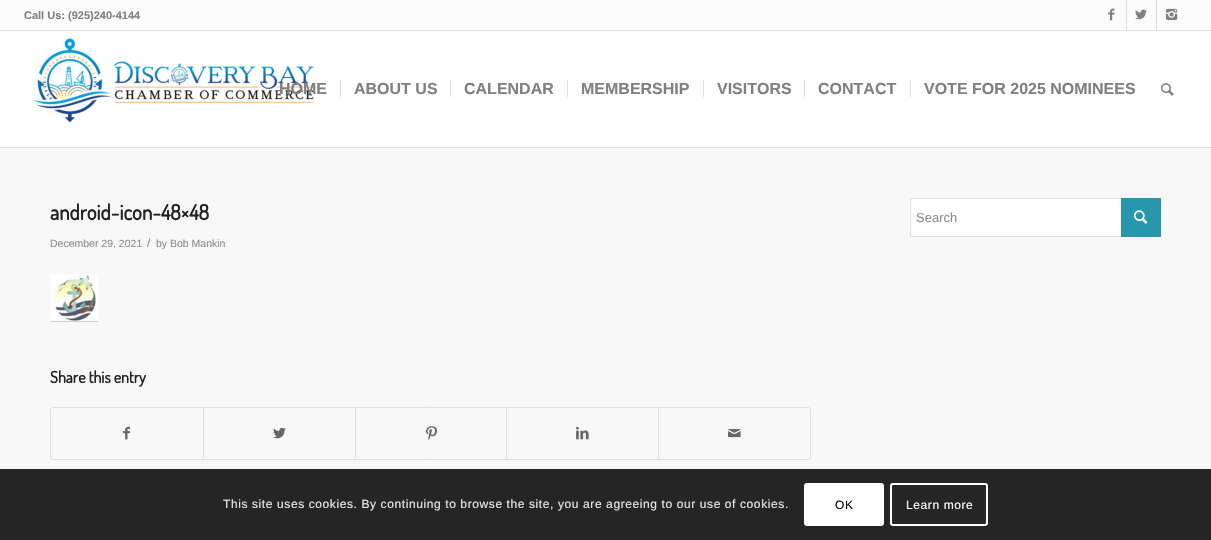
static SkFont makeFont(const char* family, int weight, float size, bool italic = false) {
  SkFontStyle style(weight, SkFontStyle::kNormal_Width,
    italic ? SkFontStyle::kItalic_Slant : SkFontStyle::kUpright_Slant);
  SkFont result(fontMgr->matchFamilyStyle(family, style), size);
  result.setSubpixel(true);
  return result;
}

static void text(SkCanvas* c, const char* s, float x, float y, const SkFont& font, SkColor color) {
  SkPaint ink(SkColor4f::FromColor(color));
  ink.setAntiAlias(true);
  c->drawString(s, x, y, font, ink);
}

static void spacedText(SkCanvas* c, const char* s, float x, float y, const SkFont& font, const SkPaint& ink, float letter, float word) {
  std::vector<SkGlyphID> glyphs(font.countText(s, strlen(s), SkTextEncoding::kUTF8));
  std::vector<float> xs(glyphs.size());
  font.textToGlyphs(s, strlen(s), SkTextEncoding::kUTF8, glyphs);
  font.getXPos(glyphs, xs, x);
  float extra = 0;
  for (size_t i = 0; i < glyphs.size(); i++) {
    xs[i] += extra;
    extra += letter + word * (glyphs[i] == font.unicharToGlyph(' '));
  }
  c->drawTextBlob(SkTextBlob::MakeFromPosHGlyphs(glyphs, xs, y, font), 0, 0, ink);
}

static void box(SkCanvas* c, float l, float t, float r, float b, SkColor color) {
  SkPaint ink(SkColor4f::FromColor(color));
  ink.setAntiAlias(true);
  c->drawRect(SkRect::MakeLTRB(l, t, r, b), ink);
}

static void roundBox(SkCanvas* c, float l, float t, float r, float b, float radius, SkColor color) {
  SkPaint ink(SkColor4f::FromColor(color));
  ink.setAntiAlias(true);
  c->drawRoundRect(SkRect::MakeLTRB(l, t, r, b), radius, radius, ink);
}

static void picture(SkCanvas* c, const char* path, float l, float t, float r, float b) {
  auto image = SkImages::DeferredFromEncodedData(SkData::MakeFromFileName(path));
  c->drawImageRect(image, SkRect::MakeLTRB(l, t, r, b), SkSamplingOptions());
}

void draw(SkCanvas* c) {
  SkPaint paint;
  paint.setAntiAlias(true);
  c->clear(0xffffffff);
  box(c, 0, 0, 1211, 30, 0xfffcfcfc);
  box(c, 0, 30, 1211, 31, 0xffe1e1e1);
  SkFont face1 = makeFont("Liberation Sans", 700, 11);
  text(c, "Call Us: (925)240-4144", 24, 19, face1, 0xff808080);
  box(c, 1126, 0, 1127, 30, 0xffe1e1e1);
  picture(c, "img_01.png", 1108, 8, 1115, 21);
  box(c, 1156, 0, 1157, 30, 0xffe1e1e1);
  picture(c, "img_02.png", 1135, 9, 1147, 20);
  picture(c, "img_03.png", 1166, 8, 1178, 21);
  box(c, 0, 147, 1211, 148, 0xffe1e1e1);
  picture(c, "img_04.png", 33, 38, 314, 123);
  SkFont face2 = makeFont("Liberation Sans", 700, 16);
  text(c, "HOME", 279, 94, face2, 0xff808080);
  text(c, "ABOUT US", 354, 94, face2, 0xff808080);
  box(c, 340, 80, 341, 97, 0xffe1e1e1);
  text(c, "CALENDAR", 464, 94, face2, 0xff808080);
  box(c, 450, 80, 451, 97, 0xffe1e1e1);
  text(c, "MEMBERSHIP", 581, 94, face2, 0xff808080);
  box(c, 567, 80, 568, 97, 0xffe1e1e1);
  text(c, "VISITORS", 717, 94, face2, 0xff808080);
  box(c, 703, 80, 704, 97, 0xffe1e1e1);
  text(c, "CONTACT", 818, 94, face2, 0xff808080);
  box(c, 804, 80, 805, 97, 0xffe1e1e1);
  text(c, "VOTE FOR 2025 NOMINEES", 924, 94, face2, 0xff808080);
  box(c, 910, 80, 911, 97, 0xffe1e1e1);
  picture(c, "img_05.png", 1161, 83, 1174, 96);
  box(c, 0, 148, 1211, 469, 0xfff8f8f8);
  SkFont face3 = makeFont("Dosis", 700, 21);
  text(c, "android-icon-48×48", 50, 220, face3, 0xff222222);
  SkFont face4 = makeFont("Liberation Sans", 400, 10.5f);
  text(c, "December 29, 2021", 50, 247, face4, 0xff8d8d8d);
  SkFont face5 = makeFont("Liberation Sans", 400, 12);
  text(c, "/", 147, 247, face5, 0xff8d8d8d);
  text(c, "by Bob Mankin", 156, 247, face4, 0xff8d8d8d);
  picture(c, "img_06.png", 50, 274, 98, 322);
  SkFont face6 = makeFont("Dosis", 700, 16);
  text(c, "Share this entry", 50, 383, face6, 0xff222222);
  paint.setStyle(SkPaint::kStroke_Style);
  paint.setStrokeWidth(1);
  paint.setColor(0xffe1e1e1);
  c->drawRoundRect(SkRect::MakeLTRB(50.5f, 407.5f, 810.5f, 459.5f), 2.5f, 2.5f, paint);
  picture(c, "img_07.png", 123, 426, 130, 440);
  box(c, 203, 408, 204, 459, 0xffe1e1e1);
  picture(c, "img_08.png", 273, 427, 286, 439);
  box(c, 355, 408, 356, 459, 0xffe1e1e1);
  picture(c, "img_09.png", 426, 426, 437, 440);
  box(c, 506, 408, 507, 459, 0xffe1e1e1);
  picture(c, "img_10.png", 576, 426, 589, 440);
  box(c, 658, 408, 659, 459, 0xffe1e1e1);
  picture(c, "img_11.png", 728, 429, 741, 438);
  box(c, 911, 199, 1121, 236, 0xffffffff);
  c->drawRect(SkRect::MakeLTRB(910.5f, 198.5f, 1160.5f, 236.5f), paint);
  SkFont face7 = makeFont("Liberation Sans", 400, 13);
  text(c, "Search", 916, 222, face7, 0xff8d8d8d);
  box(c, 1121, 198, 1161, 237, 0xff2997ab);
  picture(c, "img_12.png", 1134, 210, 1148, 224);
  box(c, 0, 469, 1211, 540, 0xff252525);
  paint.setStyle(SkPaint::kFill_Style);
  paint.setColor(0xffe9e9e9);
  spacedText(c, "This site uses cookies. By continuing to browse the site, you are agreeing to our use of cookies.", 223, 508, face5, paint, 0.6f, 0);
  roundBox(c, 804, 483, 884, 526, 3, 0xffffffff);
  paint.setColor(0xff000000);
  spacedText(c, "OK", 835, 509, face5, paint, 0.6f, 0);
  paint.setStyle(SkPaint::kStroke_Style);
  paint.setStrokeWidth(2);
  paint.setColor(0xffffffff);
  c->drawRoundRect(SkRect::MakeLTRB(891, 484, 987, 525), 2, 2, paint);
  paint.setStyle(SkPaint::kFill_Style);
  spacedText(c, "Learn more", 906, 509, face5, paint, 0.6f, 0);
}
